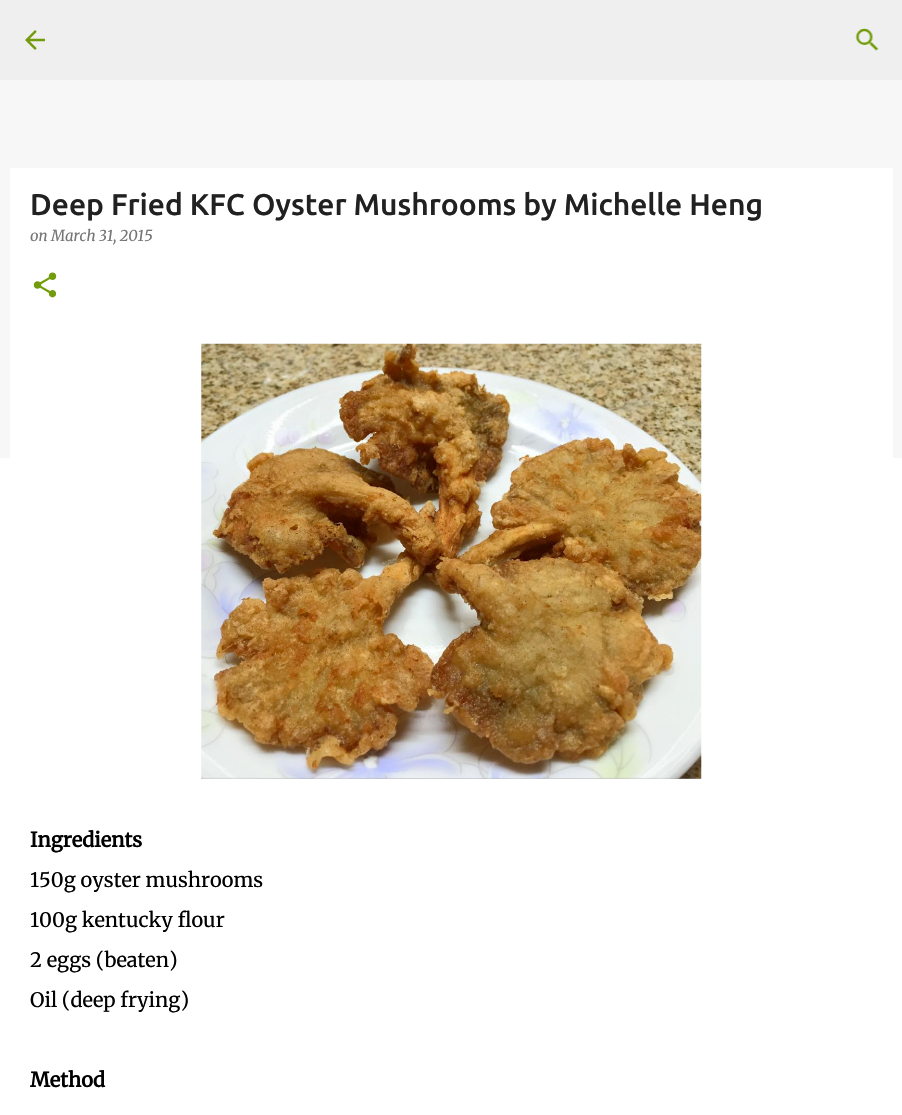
static SkFont makeFont(const char* family, int weight, float size, bool italic = false) {
  SkFontStyle style(weight, SkFontStyle::kNormal_Width,
    italic ? SkFontStyle::kItalic_Slant : SkFontStyle::kUpright_Slant);
  SkFont result(fontMgr->matchFamilyStyle(family, style), size);
  result.setSubpixel(true);
  return result;
}

static void text(SkCanvas* c, const char* s, float x, float y, const SkFont& font, SkColor color) {
  SkPaint ink(SkColor4f::FromColor(color));
  ink.setAntiAlias(true);
  c->drawString(s, x, y, font, ink);
}

static void box(SkCanvas* c, float l, float t, float r, float b, SkColor color) {
  SkPaint ink(SkColor4f::FromColor(color));
  ink.setAntiAlias(true);
  c->drawRect(SkRect::MakeLTRB(l, t, r, b), ink);
}

static void picture(SkCanvas* c, const char* path, float l, float t, float r, float b) {
  auto image = SkImages::DeferredFromEncodedData(SkData::MakeFromFileName(path));
  c->drawImageRect(image, SkRect::MakeLTRB(l, t, r, b), SkSamplingOptions());
}

void draw(SkCanvas* c) {
  SkPaint paint;
  paint.setAntiAlias(true);
  c->clear(0xfff7f7f7);
  box(c, 0, 0, 902, 80, 0xffefefef);
  picture(c, "img_01.png", 25, 30, 45, 50);
  picture(c, "img_02.png", 855, 28, 879, 51);
  box(c, 0, 458, 902, 1115, 0xffffffff);
  box(c, 10, 168, 893, 458, 0xffffffff);
  SkFont face1 = makeFont("Ubuntu", 500, 30);
  text(c, "Deep Fried KFC Oyster Mushrooms by Michelle Heng", 30, 215, face1, 0xff212121);
  SkFont face2 = makeFont("Merriweather", 400, 15, true);
  text(c, "on March 31, 2015", 30, 241, face2, 0xff757575);
  picture(c, "img_03.png", 33, 272, 57, 298);
  picture(c, "img_04.png", 201, 343, 702, 779);
  SkFont face3 = makeFont("Merriweather", 700, 20);
  text(c, "Ingredients", 30, 847, face3, 0xff000000);
  SkFont face4 = makeFont("Merriweather", 300, 20);
  text(c, "150g oyster mushrooms", 30, 887, face4, 0xff000000);
  text(c, "100g kentucky flour", 30, 927, face4, 0xff000000);
  text(c, "2 eggs (beaten)", 30, 967, face4, 0xff000000);
  text(c, "Oil (deep frying)", 30, 1007, face4, 0xff000000);
  text(c, "Method", 30, 1087, face3, 0xff000000);
}
